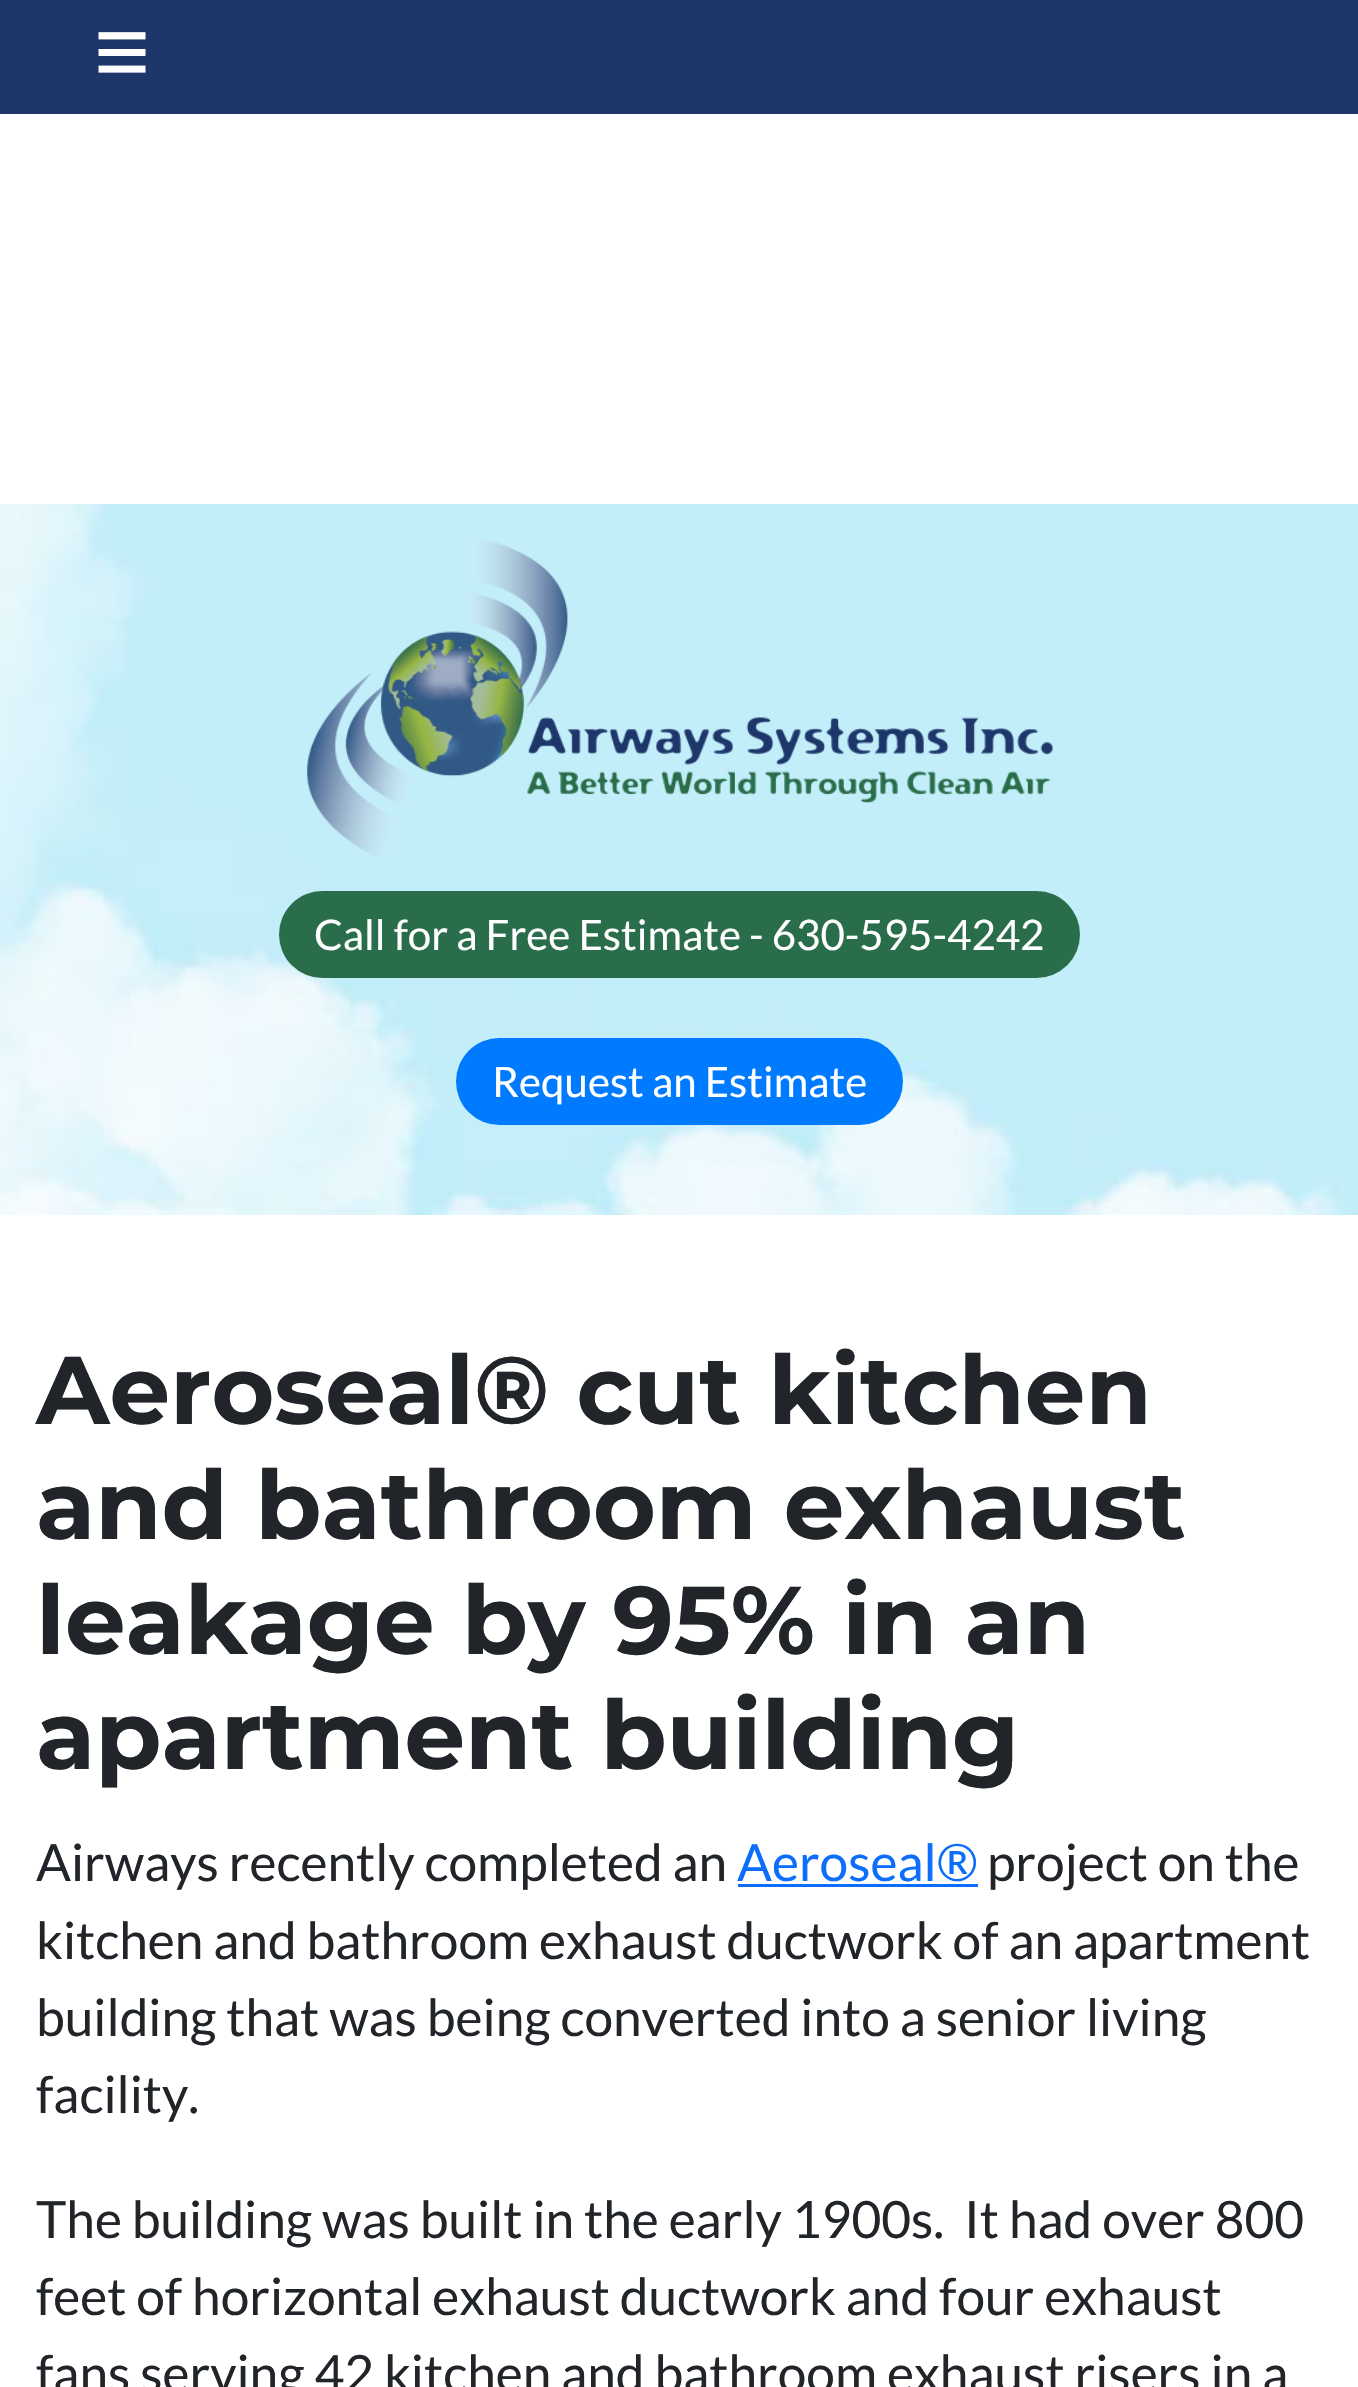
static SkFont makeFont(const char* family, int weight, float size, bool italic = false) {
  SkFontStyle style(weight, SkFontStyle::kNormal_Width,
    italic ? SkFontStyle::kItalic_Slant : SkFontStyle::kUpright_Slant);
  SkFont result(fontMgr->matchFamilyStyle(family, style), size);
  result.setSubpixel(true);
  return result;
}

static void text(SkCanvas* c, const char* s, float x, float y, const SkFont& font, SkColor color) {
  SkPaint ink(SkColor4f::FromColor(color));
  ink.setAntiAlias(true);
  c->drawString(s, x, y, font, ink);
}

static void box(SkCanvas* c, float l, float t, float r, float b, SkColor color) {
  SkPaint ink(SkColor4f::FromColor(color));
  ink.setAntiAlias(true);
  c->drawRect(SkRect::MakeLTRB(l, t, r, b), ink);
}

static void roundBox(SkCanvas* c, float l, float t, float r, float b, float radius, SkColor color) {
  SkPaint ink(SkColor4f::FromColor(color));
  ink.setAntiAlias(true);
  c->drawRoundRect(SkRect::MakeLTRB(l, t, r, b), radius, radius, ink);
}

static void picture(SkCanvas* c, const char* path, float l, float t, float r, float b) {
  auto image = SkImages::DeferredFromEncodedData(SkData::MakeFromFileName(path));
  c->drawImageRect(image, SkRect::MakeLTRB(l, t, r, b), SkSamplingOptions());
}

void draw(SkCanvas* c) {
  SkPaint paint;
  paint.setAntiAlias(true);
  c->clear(0xffffffff);
  box(c, 0, 0, 1358, 114, 0xff1e376a);
  SkFont face1 = makeFont("Liberation Sans", 400, 96);
  text(c, "≡", 94, 84, face1, 0xffffffff);
  picture(c, "img_01.png", 0, 504, 1358, 1215);
  picture(c, "img_02.png", 307, 539, 1053, 858);
  roundBox(c, 279, 891, 1080, 978, 43.5f, 0xff2a6d4b);
  SkFont face2 = makeFont("Lato", 400, 42);
  text(c, "Call for a Free Estimate - 630-595-4242", 314, 950, face2, 0xffffffff);
  roundBox(c, 456, 1038, 903, 1125, 43.5f, 0xff007bff);
  text(c, "Request an Estimate", 492, 1097, face2, 0xffffffff);
  SkFont face3 = makeFont("Montserrat", 700, 96);
  text(c, "Aeroseal® cut kitchen", 36, 1424, face3, 0xff212529);
  text(c, "and bathroom exhaust", 36, 1539, face3, 0xff212529);
  text(c, "leakage by 95% in an", 36, 1654, face3, 0xff212529);
  text(c, "apartment building", 36, 1769, face3, 0xff212529);
  SkFont face4 = makeFont("Lato", 400, 51.4f);
  text(c, "Airways recently completed an", 36, 1881, face4, 0xff212529);
  text(c, "Aeroseal®", 737, 1881, face4, 0xff0d6efd);
  box(c, 738, 1884, 978, 1887, 0xff0d6efd);
  text(c, "project on the", 987, 1881, face4, 0xff212529);
  text(c, "kitchen and bathroom exhaust ductwork of an apartment", 36, 1959, face4, 0xff212529);
  text(c, "building that was being converted into a senior living", 36, 2036, face4, 0xff212529);
  text(c, "facility.", 36, 2113, face4, 0xff212529);
  text(c, "The building was built in the early 1900s.  It had over 800", 36, 2238, face4, 0xff212529);
  text(c, "feet of horizontal exhaust ductwork and four exhaust", 36, 2315, face4, 0xff212529);
  text(c, "fans serving 42 kitchen and bathroom exhaust risers in a", 36, 2392, face4, 0xff212529);
}
